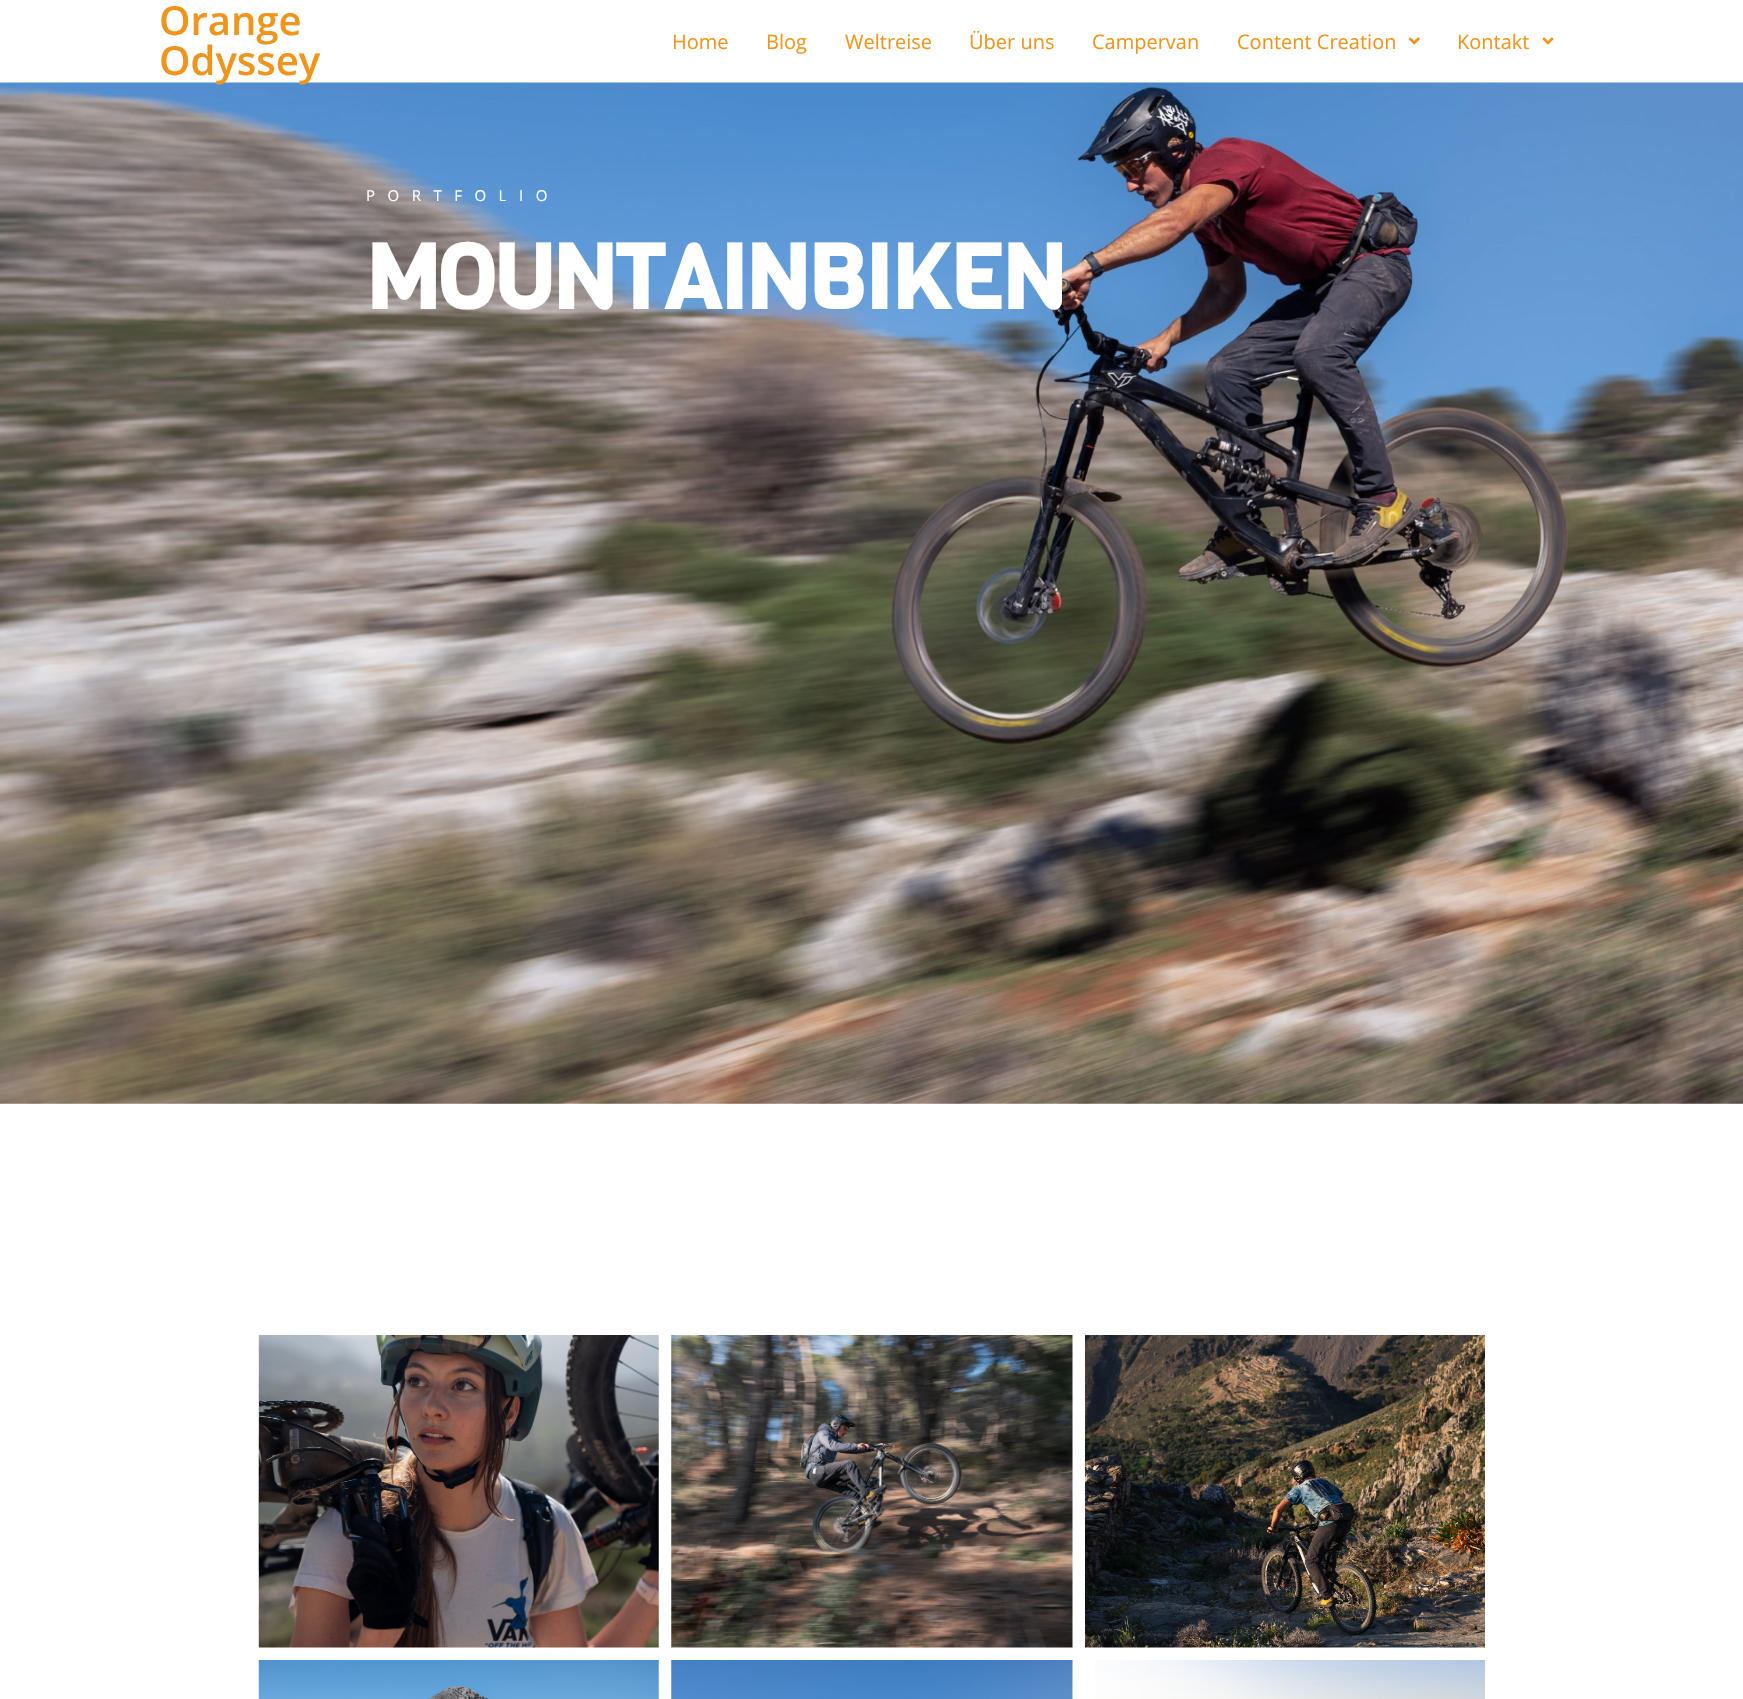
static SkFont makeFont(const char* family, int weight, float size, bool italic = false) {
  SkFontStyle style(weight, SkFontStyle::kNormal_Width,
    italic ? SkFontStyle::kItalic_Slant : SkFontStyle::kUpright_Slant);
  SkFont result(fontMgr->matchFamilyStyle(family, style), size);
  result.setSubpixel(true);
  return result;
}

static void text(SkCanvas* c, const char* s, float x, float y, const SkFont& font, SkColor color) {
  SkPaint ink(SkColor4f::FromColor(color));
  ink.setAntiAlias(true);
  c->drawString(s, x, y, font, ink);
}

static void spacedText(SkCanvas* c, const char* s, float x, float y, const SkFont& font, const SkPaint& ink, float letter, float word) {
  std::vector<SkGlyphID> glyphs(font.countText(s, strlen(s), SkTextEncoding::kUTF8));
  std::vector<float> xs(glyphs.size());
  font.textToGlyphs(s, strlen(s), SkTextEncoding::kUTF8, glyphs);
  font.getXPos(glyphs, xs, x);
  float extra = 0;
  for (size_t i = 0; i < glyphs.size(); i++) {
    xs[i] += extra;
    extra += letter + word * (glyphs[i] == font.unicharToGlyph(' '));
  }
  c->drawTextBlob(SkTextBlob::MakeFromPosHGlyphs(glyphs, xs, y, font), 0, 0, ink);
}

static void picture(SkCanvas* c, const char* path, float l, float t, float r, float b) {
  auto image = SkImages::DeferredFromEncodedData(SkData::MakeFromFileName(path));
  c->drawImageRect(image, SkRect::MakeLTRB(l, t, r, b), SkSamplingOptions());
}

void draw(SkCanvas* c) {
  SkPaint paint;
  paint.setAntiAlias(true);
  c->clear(0xffffffff);
  SkFont face1 = makeFont("Open Sans", 600, 40);
  text(c, "Orange", 159, 35, face1, 0xfff0951b);
  picture(c, "img_03.png", 0, 82, 1743, 1104);
  text(c, "Odyssey", 159, 75, face1, 0xfff0951b);
  SkFont face2 = makeFont("Open Sans", 400, 20);
  text(c, "Home", 672, 49, face2, 0xfff0951b);
  text(c, "Blog", 766, 49, face2, 0xfff0951b);
  text(c, "Weltreise", 845, 49, face2, 0xfff0951b);
  text(c, "Über uns", 969, 49, face2, 0xfff0951b);
  text(c, "Campervan", 1092, 49, face2, 0xfff0951b);
  text(c, "Content Creation", 1237, 49, face2, 0xfff0951b);
  picture(c, "img_01.png", 1408, 37, 1420, 45);
  text(c, "Kontakt", 1457, 49, face2, 0xfff0951b);
  picture(c, "img_02.png", 1542, 37, 1554, 45);
  SkFont face3 = makeFont("Open Sans", 400, 15);
  paint.setColor(0xffffffff);
  spacedText(c, "PORTFOLIO", 366, 201, face3, paint, 12.5f, 0);
  SkFont face4 = makeFont("Viga", 700, 90);
  spacedText(c, "MOUNTAINBIKEN", 366, 309, face4, paint, -1.5f, 0);
  picture(c, "img_04.png", 258, 1335, 659, 1648);
  picture(c, "img_05.png", 671, 1335, 1073, 1648);
  picture(c, "img_06.png", 1085, 1335, 1485, 1648);
  picture(c, "img_07.png", 258, 1660, 659, 1699);
  picture(c, "img_08.png", 671, 1660, 1073, 1699);
  picture(c, "img_09.png", 1095, 1660, 1485, 1699);
}
